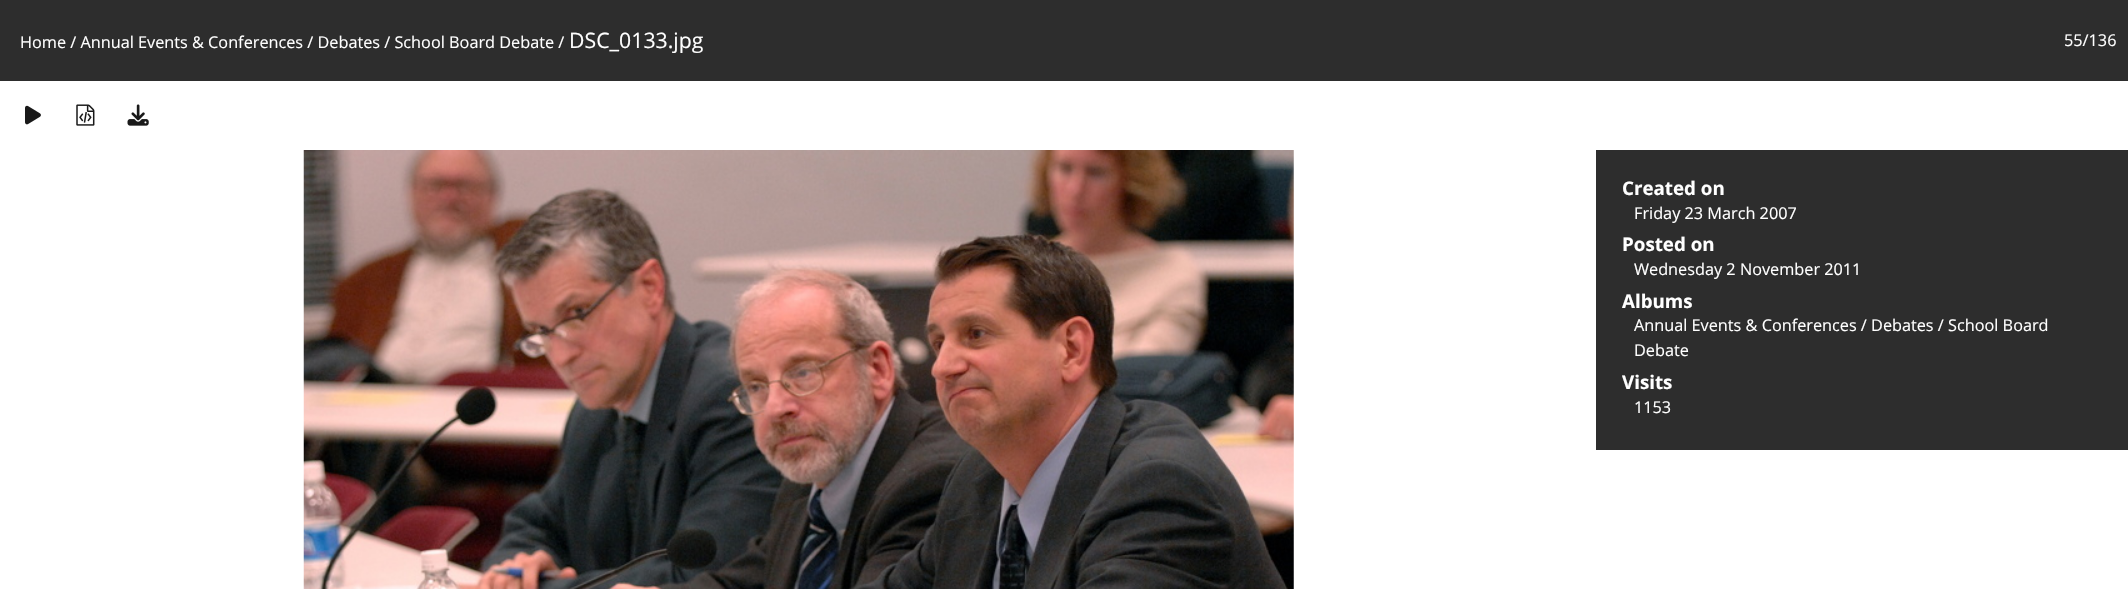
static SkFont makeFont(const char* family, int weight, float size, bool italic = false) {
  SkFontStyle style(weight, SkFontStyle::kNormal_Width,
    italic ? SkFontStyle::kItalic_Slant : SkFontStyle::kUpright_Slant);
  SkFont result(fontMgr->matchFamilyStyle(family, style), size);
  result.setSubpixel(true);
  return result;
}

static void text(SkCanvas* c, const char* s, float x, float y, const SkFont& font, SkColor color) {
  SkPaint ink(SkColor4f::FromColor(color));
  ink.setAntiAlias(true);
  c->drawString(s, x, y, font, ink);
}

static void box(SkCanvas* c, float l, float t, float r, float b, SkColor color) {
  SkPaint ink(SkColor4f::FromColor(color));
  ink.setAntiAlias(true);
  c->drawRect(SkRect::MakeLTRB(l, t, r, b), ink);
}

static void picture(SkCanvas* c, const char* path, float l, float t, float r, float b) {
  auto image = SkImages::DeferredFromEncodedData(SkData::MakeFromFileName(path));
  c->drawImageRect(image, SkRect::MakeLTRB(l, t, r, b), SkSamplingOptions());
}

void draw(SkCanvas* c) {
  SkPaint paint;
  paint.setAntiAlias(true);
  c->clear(0xffffffff);
  box(c, 0, 0, 2128, 81, 0xff2d2d2d);
  SkFont face1 = makeFont("Open Sans", 400, 16.25f);
  text(c, "Home / Annual Events & Conferences / Debates / School Board Debate /", 20, 48, face1, 0xffffffff);
  SkFont face2 = makeFont("Open Sans", 400, 21.25f);
  text(c, "DSC_0133.jpg", 569, 48, face2, 0xffffffff);
  text(c, "55/136", 2064, 46, face1, 0xffffffff);
  picture(c, "img_01.png", 25, 105, 41, 125);
  picture(c, "img_02.png", 76, 104, 95, 126);
  picture(c, "img_03.png", 127, 104, 149, 126);
  picture(c, "img_04.png", 303, 150, 1294, 589);
  box(c, 1596, 150, 2128, 450, 0xff2d2d2d);
  SkFont face3 = makeFont("Open Sans", 700, 18.75f);
  text(c, "Created on", 1622, 195, face3, 0xffffffff);
  text(c, "Friday 23 March 2007", 1634, 219, face1, 0xffffffff);
  text(c, "Posted on", 1622, 251, face3, 0xffffffff);
  text(c, "Wednesday 2 November 2011", 1634, 275, face1, 0xffffffff);
  text(c, "Albums", 1622, 308, face3, 0xffffffff);
  text(c, "Annual Events & Conferences / Debates / School Board", 1634, 331, face1, 0xffffffff);
  text(c, "Debate", 1634, 356, face1, 0xffffffff);
  text(c, "Visits", 1622, 389, face3, 0xffffffff);
  text(c, "1153", 1634, 413, face1, 0xffffffff);
}
